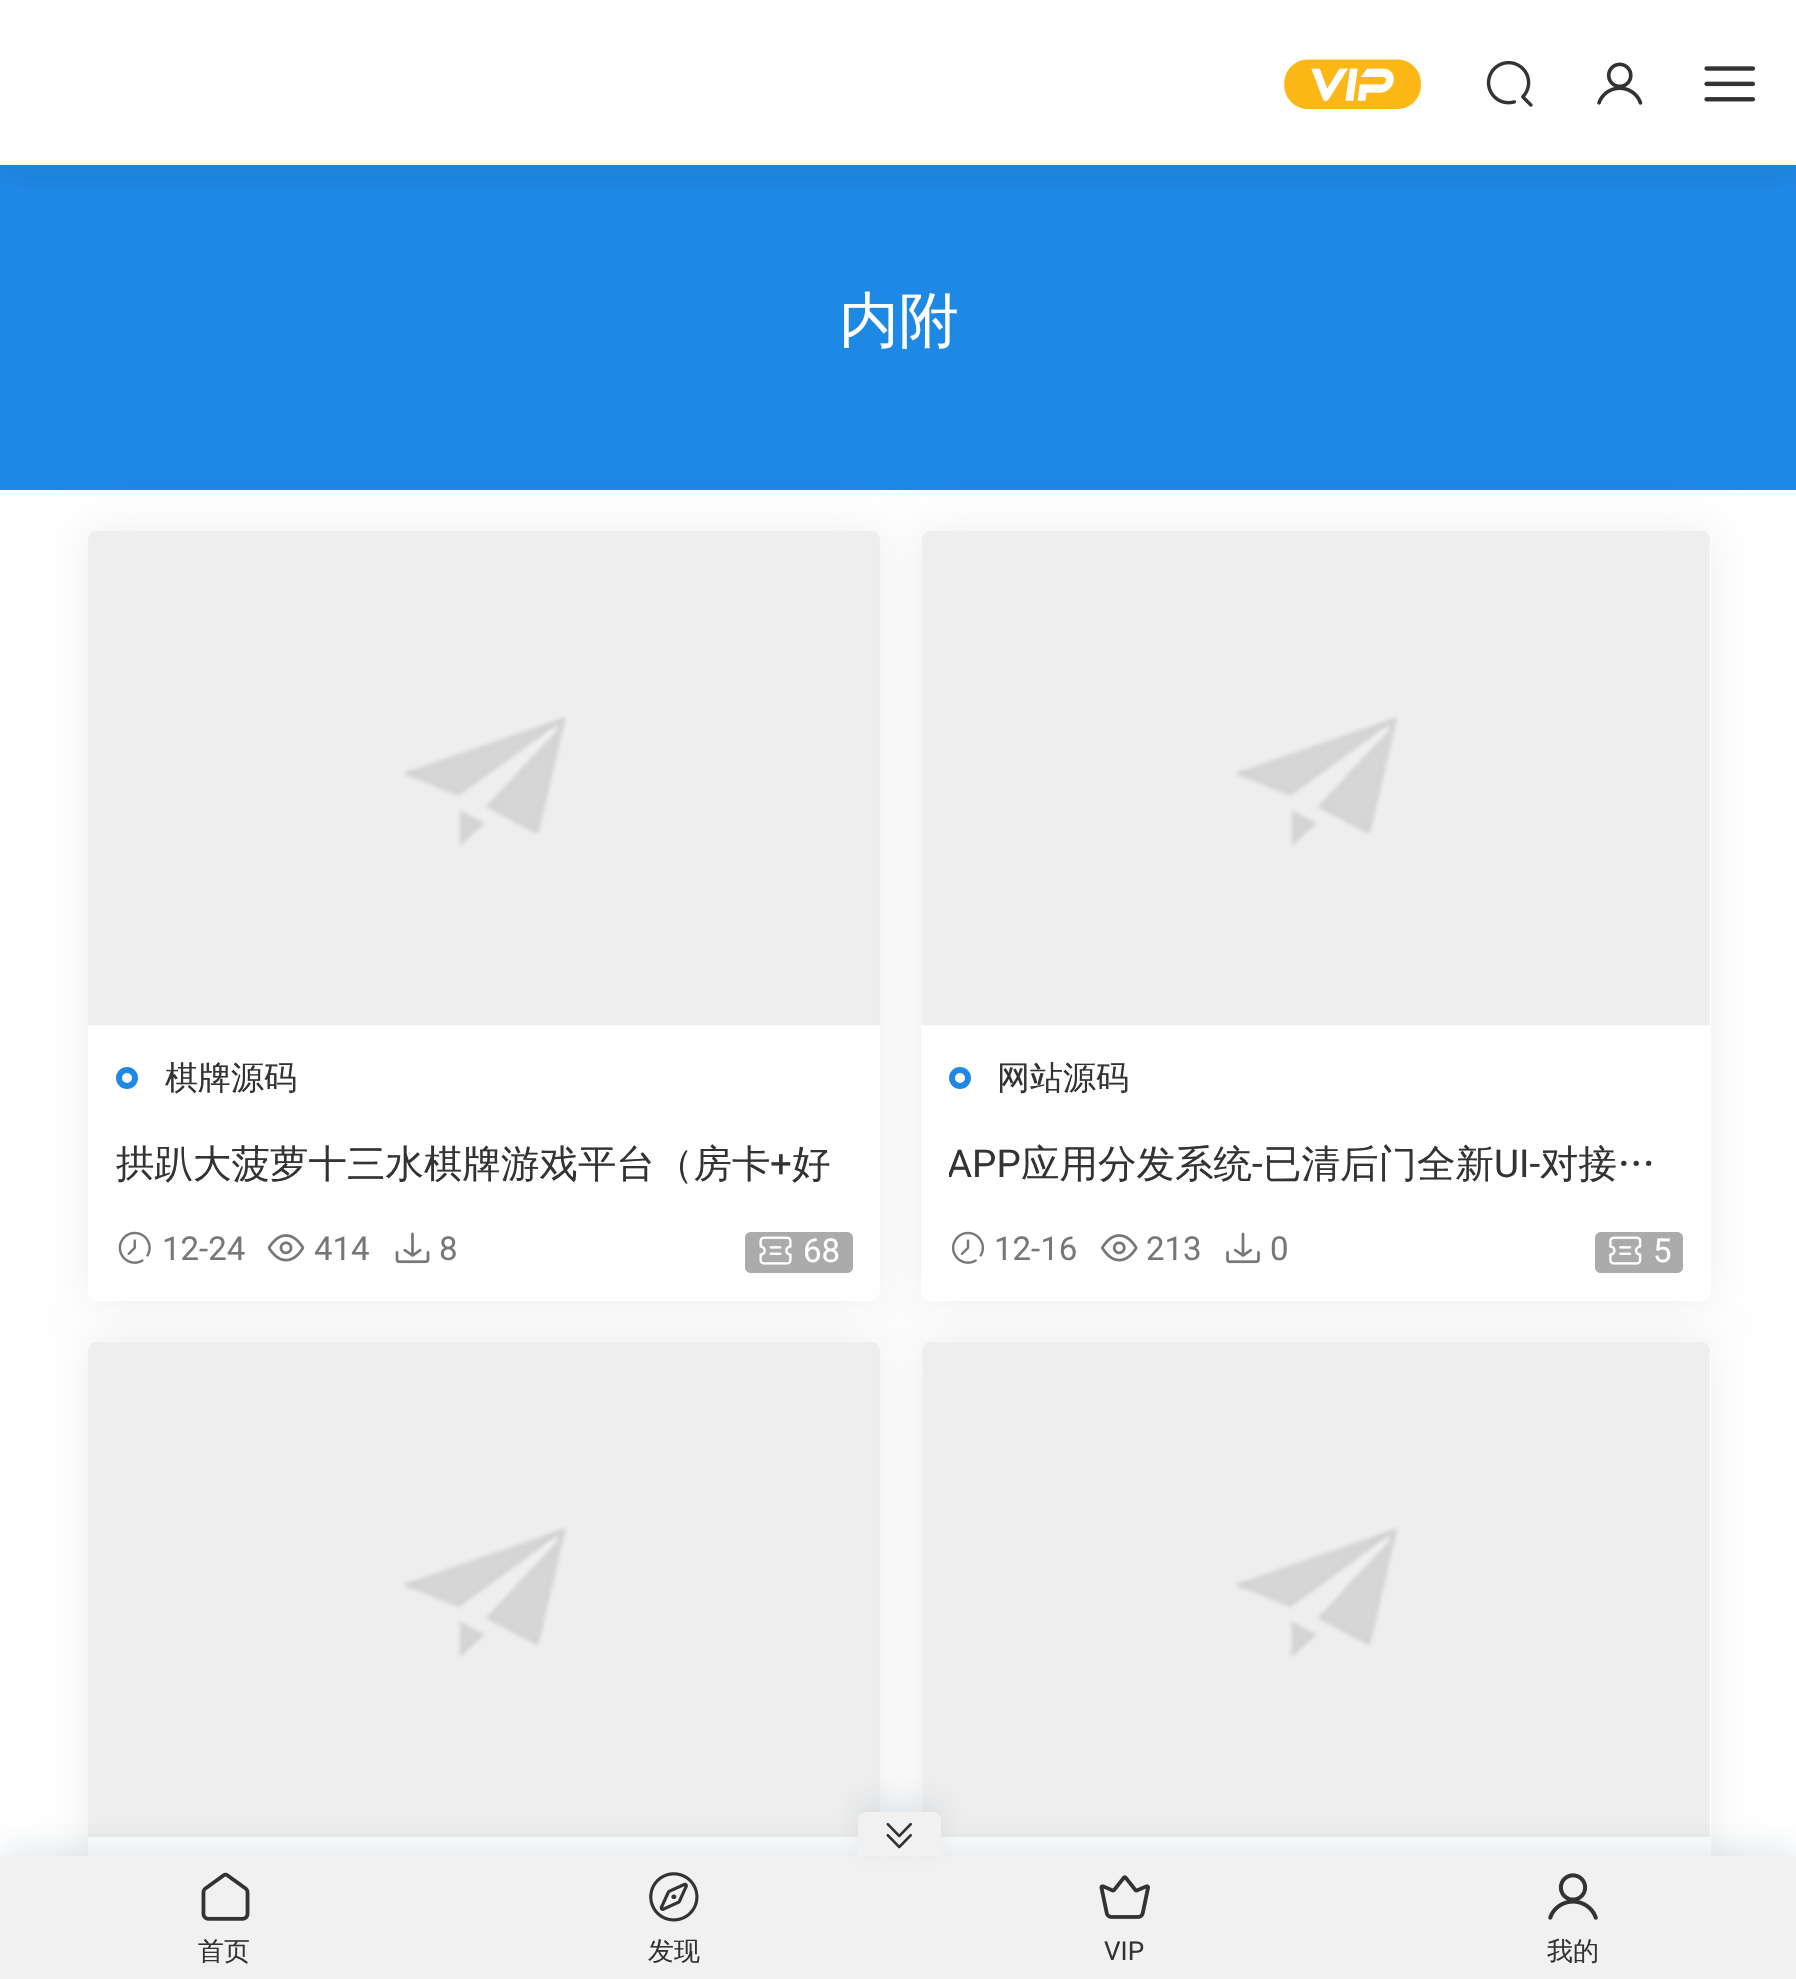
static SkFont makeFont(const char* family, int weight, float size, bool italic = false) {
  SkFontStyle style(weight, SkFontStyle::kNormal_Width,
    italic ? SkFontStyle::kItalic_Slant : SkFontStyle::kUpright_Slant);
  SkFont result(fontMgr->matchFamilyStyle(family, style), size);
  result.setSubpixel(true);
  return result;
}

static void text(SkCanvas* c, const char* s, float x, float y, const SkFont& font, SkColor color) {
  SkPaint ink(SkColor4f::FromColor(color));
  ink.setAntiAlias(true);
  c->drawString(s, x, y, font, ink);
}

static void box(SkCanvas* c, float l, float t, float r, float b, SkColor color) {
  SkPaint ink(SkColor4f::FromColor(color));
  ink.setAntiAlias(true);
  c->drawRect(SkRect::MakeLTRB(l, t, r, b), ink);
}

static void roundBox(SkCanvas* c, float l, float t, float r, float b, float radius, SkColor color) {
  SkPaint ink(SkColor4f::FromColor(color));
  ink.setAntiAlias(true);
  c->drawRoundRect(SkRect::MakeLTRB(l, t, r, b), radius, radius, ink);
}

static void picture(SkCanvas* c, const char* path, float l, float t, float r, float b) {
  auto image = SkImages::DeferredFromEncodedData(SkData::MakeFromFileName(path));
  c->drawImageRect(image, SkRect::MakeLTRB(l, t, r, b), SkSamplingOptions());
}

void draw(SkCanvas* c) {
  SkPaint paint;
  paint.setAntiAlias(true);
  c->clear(0xffffffff);
  box(c, 0, 165, 1796, 490, 0xff1e88e5);
  c->save();
  c->clipRect(SkRect::MakeLTRB(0, 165, 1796, 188));
  paint.setColor(0x1a113a5d);
  paint.setMaskFilter(SkMaskFilter::MakeBlur(kNormal_SkBlurStyle, 14));
  c->drawRect(SkRect::MakeLTRB(0, 11, 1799, 176), paint);
  paint.setMaskFilter(nullptr);
  c->restore();
  picture(c, "img_01.png", 1284, 59, 1421, 110);
  picture(c, "img_02.png", 1486, 60, 1533, 107);
  picture(c, "img_03.png", 1597, 62, 1643, 105);
  picture(c, "img_04.png", 1704, 66, 1756, 102);
  SkFont face1 = makeFont("WenQuanYi Zen Hei", 500, 60);
  text(c, "内附", 839, 341, face1, 0xffffffff);
  paint.setColor(0x12000000);
  paint.setMaskFilter(SkMaskFilter::MakeBlur(kNormal_SkBlurStyle, 20.5f));
  c->drawRoundRect(SkRect::MakeLTRB(88, 531, 880, 1301), 8, 8, paint);
  paint.setMaskFilter(nullptr);
  roundBox(c, 88, 531, 880, 1301, 8, 0xffffffff);
  picture(c, "img_05.png", 88, 531, 880, 1026);
  paint.setStyle(SkPaint::kStroke_Style);
  paint.setStrokeWidth(6);
  paint.setColor(0xff1e88e5);
  c->drawCircle(127, 1078, 8, paint);
  SkFont face2 = makeFont("WenQuanYi Zen Hei", 500, 33);
  text(c, "棋牌源码", 165, 1089, face2, 0xff333333);
  SkFont face3 = makeFont("WenQuanYi Zen Hei", 500, 38.5f);
  text(c, "拱趴大菠萝十三水棋牌游戏平台（房卡", 116, 1177, face3, 0xff333333);
  SkFont face4 = makeFont("Roboto", 400, 38.5f);
  text(c, "+", 770, 1177, face4, 0xff333333);
  text(c, "好", 792, 1177, face3, 0xff333333);
  picture(c, "img_06.png", 118, 1231, 151, 1264);
  SkFont face5 = makeFont("Roboto", 400, 33);
  text(c, "12-24", 162, 1260, face5, 0xff777777);
  picture(c, "img_07.png", 267, 1234, 305, 1262);
  text(c, "414", 314, 1260, face5, 0xff777777);
  picture(c, "img_08.png", 395, 1232, 430, 1264);
  text(c, "8", 439, 1260, face5, 0xff777777);
  paint.setStyle(SkPaint::kFill_Style);
  paint.setColor(0xffababab);
  c->drawPath(SkPathBuilder().moveTo(751, 1232).lineTo(795, 1232).lineTo(795, 1273).lineTo(751, 1273).cubicTo(747.5f, 1273, 745, 1270.5f, 745, 1267).lineTo(745, 1238).cubicTo(745, 1234.5f, 747.5f, 1232, 751, 1232).close().detach(), paint);
  picture(c, "img_09.png", 759, 1236, 792, 1265);
  c->drawPath(SkPathBuilder().moveTo(795, 1232).lineTo(847, 1232).cubicTo(850.5f, 1232, 853, 1234.5f, 853, 1238).lineTo(853, 1267).cubicTo(853, 1270.5f, 850.5f, 1273, 847, 1273).lineTo(795, 1273).close().detach(), paint);
  text(c, "68", 803, 1262, face5, 0xffffffff);
  paint.setColor(0x12000000);
  paint.setMaskFilter(SkMaskFilter::MakeBlur(kNormal_SkBlurStyle, 20.5f));
  c->drawRoundRect(SkRect::MakeLTRB(921, 531, 1711, 1301), 8, 8, paint);
  paint.setMaskFilter(nullptr);
  roundBox(c, 921, 531, 1711, 1301, 8, 0xffffffff);
  picture(c, "img_10.png", 921, 531, 1710, 1026);
  paint.setStyle(SkPaint::kStroke_Style);
  paint.setColor(0xff1e88e5);
  c->drawCircle(960, 1078, 8, paint);
  text(c, "网站源码", 997, 1089, face2, 0xff333333);
  c->save();
  c->clipRect(SkRect::MakeLTRB(949, 1136, 1683, 1191));
  text(c, "APP", 947, 1177, face4, 0xff333333);
  c->restore();
  text(c, "应用分发系统", 1021, 1177, face3, 0xff333333);
  text(c, "-", 1252, 1177, face4, 0xff333333);
  text(c, "已清后门全新", 1263, 1177, face3, 0xff333333);
  text(c, "UI-", 1494, 1177, face4, 0xff333333);
  text(c, "对接…", 1540, 1177, face3, 0xff333333);
  picture(c, "img_11.png", 951, 1231, 985, 1264);
  text(c, "12-16", 994, 1260, face5, 0xff777777);
  picture(c, "img_12.png", 1101, 1234, 1138, 1262);
  text(c, "213", 1146, 1260, face5, 0xff777777);
  picture(c, "img_13.png", 1226, 1232, 1260, 1264);
  text(c, "0", 1270, 1260, face5, 0xff777777);
  paint.setStyle(SkPaint::kFill_Style);
  paint.setColor(0xffababab);
  c->drawPath(SkPathBuilder().moveTo(1601, 1232).lineTo(1645, 1232).lineTo(1645, 1273).lineTo(1601, 1273).cubicTo(1597.5f, 1273, 1595, 1270.5f, 1595, 1267).lineTo(1595, 1238).cubicTo(1595, 1234.5f, 1597.5f, 1232, 1601, 1232).close().detach(), paint);
  picture(c, "img_14.png", 1609, 1236, 1642, 1265);
  c->drawPath(SkPathBuilder().moveTo(1645, 1232).lineTo(1677, 1232).cubicTo(1680.5f, 1232, 1683, 1234.5f, 1683, 1238).lineTo(1683, 1267).cubicTo(1683, 1270.5f, 1680.5f, 1273, 1677, 1273).lineTo(1645, 1273).close().detach(), paint);
  text(c, "5", 1653, 1262, face5, 0xffffffff);
  paint.setColor(0x12000000);
  paint.setMaskFilter(SkMaskFilter::MakeBlur(kNormal_SkBlurStyle, 20.5f));
  c->drawRoundRect(SkRect::MakeLTRB(88, 1342, 880, 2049), 8, 8, paint);
  paint.setMaskFilter(nullptr);
  roundBox(c, 88, 1342, 880, 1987, 8, 0xffffffff);
  picture(c, "img_15.png", 88, 1342, 880, 1837);
  paint.setMaskFilter(SkMaskFilter::MakeBlur(kNormal_SkBlurStyle, 20.5f));
  c->drawRoundRect(SkRect::MakeLTRB(921, 1342, 1711, 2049), 8, 8, paint);
  paint.setMaskFilter(nullptr);
  roundBox(c, 921, 1342, 1711, 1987, 8, 0xffffffff);
  picture(c, "img_16.png", 921, 1342, 1710, 1837);
  paint.setColor(0x1a113a5d);
  paint.setMaskFilter(SkMaskFilter::MakeBlur(kNormal_SkBlurStyle, 14));
  c->drawRect(SkRect::MakeLTRB(0, 1845, 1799, 1969), paint);
  paint.setMaskFilter(nullptr);
  box(c, 0, 1856, 1796, 1979, 0xfff1f1f1);
  paint.setMaskFilter(SkMaskFilter::MakeBlur(kNormal_SkBlurStyle, 14));
  c->drawRoundRect(SkRect::MakeLTRB(858, 1801, 941, 1845), 8, 8, paint);
  paint.setMaskFilter(nullptr);
  paint.setColor(0xfff1f1f1);
  c->drawPath(SkPathBuilder().moveTo(866, 1812).lineTo(933, 1812).cubicTo(937.5f, 1812, 941, 1815.5f, 941, 1820).lineTo(941, 1856).lineTo(858, 1856).lineTo(858, 1820).cubicTo(858, 1815.5f, 861.5f, 1812, 866, 1812).close().detach(), paint);
  picture(c, "img_17.png", 886, 1822, 912, 1849);
  picture(c, "img_18.png", 201, 1872, 250, 1921);
  SkFont face6 = makeFont("WenQuanYi Zen Hei", 500, 26);
  text(c, "首页", 198, 1960, face6, 0xff333333);
  picture(c, "img_19.png", 649, 1872, 699, 1922);
  text(c, "发现", 648, 1960, face6, 0xff333333);
  picture(c, "img_20.png", 1099, 1875, 1150, 1919);
  SkFont face7 = makeFont("Roboto", 400, 26);
  text(c, "VIP", 1104, 1960, face7, 0xff333333);
  picture(c, "img_21.png", 1548, 1873, 1598, 1920);
  text(c, "我的", 1547, 1960, face6, 0xff333333);
}
